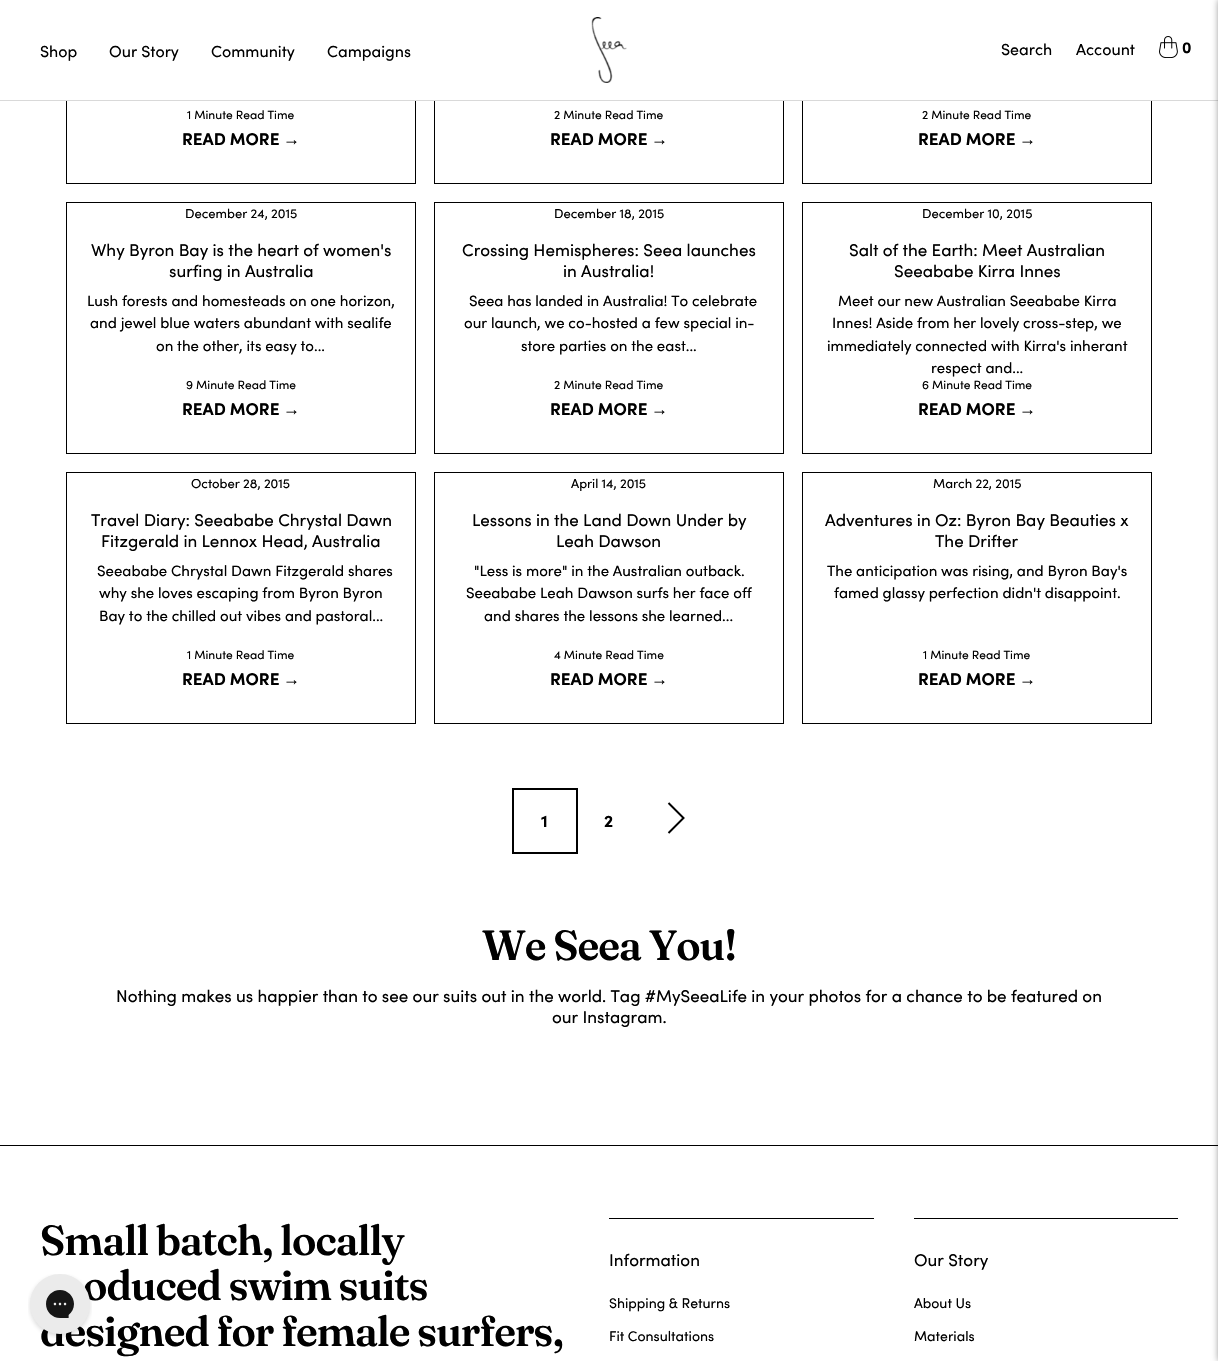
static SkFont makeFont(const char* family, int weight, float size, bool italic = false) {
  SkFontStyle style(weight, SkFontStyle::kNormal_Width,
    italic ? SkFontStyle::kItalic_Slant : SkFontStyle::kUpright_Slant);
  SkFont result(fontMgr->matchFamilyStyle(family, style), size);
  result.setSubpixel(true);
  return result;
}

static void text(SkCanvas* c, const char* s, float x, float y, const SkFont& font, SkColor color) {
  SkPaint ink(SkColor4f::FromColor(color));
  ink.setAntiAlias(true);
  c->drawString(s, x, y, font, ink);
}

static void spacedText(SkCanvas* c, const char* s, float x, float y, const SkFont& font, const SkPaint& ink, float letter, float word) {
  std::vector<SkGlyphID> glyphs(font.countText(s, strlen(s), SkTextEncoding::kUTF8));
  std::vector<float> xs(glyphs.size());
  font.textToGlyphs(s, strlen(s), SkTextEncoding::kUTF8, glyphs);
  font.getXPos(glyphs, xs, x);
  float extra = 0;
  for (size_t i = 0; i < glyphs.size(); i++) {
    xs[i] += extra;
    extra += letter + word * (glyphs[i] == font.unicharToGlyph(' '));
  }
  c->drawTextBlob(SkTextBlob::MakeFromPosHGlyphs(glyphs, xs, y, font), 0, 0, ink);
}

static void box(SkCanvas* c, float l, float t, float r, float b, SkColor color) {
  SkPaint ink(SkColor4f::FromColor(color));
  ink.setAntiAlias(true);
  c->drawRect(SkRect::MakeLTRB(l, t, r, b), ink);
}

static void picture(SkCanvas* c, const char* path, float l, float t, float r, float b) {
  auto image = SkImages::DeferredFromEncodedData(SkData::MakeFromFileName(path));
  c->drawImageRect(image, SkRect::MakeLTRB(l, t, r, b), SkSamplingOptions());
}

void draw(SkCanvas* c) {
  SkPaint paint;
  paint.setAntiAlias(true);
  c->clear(0xffffffff);
  paint.setStyle(SkPaint::kStroke_Style);
  paint.setStrokeWidth(1);
  paint.setColor(0xff000000);
  c->drawRect(SkRect::MakeLTRB(66.5f, -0.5f, 415.5f, 183.5f), paint);
  c->drawRect(SkRect::MakeLTRB(434.5f, -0.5f, 783.5f, 183.5f), paint);
  c->drawRect(SkRect::MakeLTRB(802.5f, -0.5f, 1151.5f, 183.5f), paint);
  box(c, 0, 100, 1218, 101, 0xffd9d9d9);
  box(c, 66, 0, 1152, 100, 0xffffffff);
  SkFont face1 = makeFont("Sofia", 400, 16);
  text(c, "Shop", 40, 57, face1, 0xff000000);
  text(c, "Our Story", 109, 57, face1, 0xff000000);
  text(c, "Community", 211, 57, face1, 0xff000000);
  text(c, "Campaigns", 327, 57, face1, 0xff000000);
  picture(c, "img_01.png", 591, 17, 627, 83);
  text(c, "Search", 1001, 55, face1, 0xff000000);
  text(c, "Account", 1076, 55, face1, 0xff000000);
  picture(c, "img_02.png", 1159, 36, 1178, 58);
  SkFont face2 = makeFont("Sofia", 700, 16);
  text(c, "0", 1182, 53, face2, 0xff000000);
  box(c, 0, 1145, 1218, 1146, 0xff000000);
  paint.setStyle(SkPaint::kFill_Style);
  paint.setColor(0x80000000);
  paint.setMaskFilter(SkMaskFilter::MakeBlur(kNormal_SkBlurStyle, 3.5f));
  c->drawRect(SkRect::MakeLTRB(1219, 0, 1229, 1361), paint);
  paint.setMaskFilter(nullptr);
  SkFont face3 = makeFont("Sofia", 400, 12);
  text(c, "1 Minute Read Time", 187, 119, face3, 0xff000000);
  SkFont face4 = makeFont("Sofia", 700, 17);
  text(c, "READ MORE", 182, 145, face4, 0xff000000);
  SkFont face5 = makeFont("Liberation Sans", 700, 17);
  text(c, "→", 283, 145, face5, 0xff000000);
  text(c, "2 Minute Read Time", 554, 119, face3, 0xff000000);
  text(c, "READ MORE", 550, 145, face4, 0xff000000);
  text(c, "→", 651, 145, face5, 0xff000000);
  text(c, "2 Minute Read Time", 922, 119, face3, 0xff000000);
  text(c, "READ MORE", 918, 145, face4, 0xff000000);
  text(c, "→", 1019, 145, face5, 0xff000000);
  paint.setStyle(SkPaint::kStroke_Style);
  paint.setColor(0xff000000);
  c->drawRect(SkRect::MakeLTRB(66.5f, 202.5f, 415.5f, 453.5f), paint);
  SkFont face6 = makeFont("Sofia", 400, 13);
  text(c, "December 24, 2015", 185, 218, face6, 0xff000000);
  SkFont face7 = makeFont("Sofia", 400, 17);
  text(c, "Why Byron Bay is the heart of women's", 91, 256, face7, 0xff000000);
  text(c, "surfing in Australia", 169, 277, face7, 0xff000000);
  SkFont face8 = makeFont("Sofia", 400, 15);
  text(c, "Lush forests and homesteads on one horizon,", 87, 306, face8, 0xff000000);
  text(c, "and jewel blue waters abundant with sealife", 90, 328, face8, 0xff000000);
  text(c, "on the other, its easy to...", 156, 351, face8, 0xff000000);
  text(c, "9 Minute Read Time", 186, 389, face3, 0xff000000);
  text(c, "READ MORE", 182, 415, face4, 0xff000000);
  text(c, "→", 283, 415, face5, 0xff000000);
  c->drawRect(SkRect::MakeLTRB(434.5f, 202.5f, 783.5f, 453.5f), paint);
  text(c, "December 18, 2015", 554, 218, face6, 0xff000000);
  text(c, "Crossing Hemispheres: Seea launches", 462, 256, face7, 0xff000000);
  text(c, "in Australia!", 563, 277, face7, 0xff000000);
  text(c, "Seea has landed in Australia! To celebrate", 469, 306, face8, 0xff000000);
  text(c, "our launch, we co-hosted a few special in-", 464, 328, face8, 0xff000000);
  text(c, "store parties on the east...", 521, 351, face8, 0xff000000);
  text(c, "2 Minute Read Time", 554, 389, face3, 0xff000000);
  text(c, "READ MORE", 550, 415, face4, 0xff000000);
  text(c, "→", 651, 415, face5, 0xff000000);
  c->drawRect(SkRect::MakeLTRB(802.5f, 202.5f, 1151.5f, 453.5f), paint);
  text(c, "December 10, 2015", 922, 218, face6, 0xff000000);
  text(c, "Salt of the Earth: Meet Australian", 849, 256, face7, 0xff000000);
  text(c, "Seeababe Kirra Innes", 894, 277, face7, 0xff000000);
  text(c, "Meet our new Australian Seeababe Kirra", 838, 306, face8, 0xff000000);
  text(c, "Innes! Aside from her lovely cross-step, we", 832, 328, face8, 0xff000000);
  text(c, "immediately connected with Kirra's inherant", 827, 351, face8, 0xff000000);
  text(c, "respect and...", 931, 373, face8, 0xff000000);
  text(c, "6 Minute Read Time", 922, 389, face3, 0xff000000);
  text(c, "READ MORE", 918, 415, face4, 0xff000000);
  text(c, "→", 1019, 415, face5, 0xff000000);
  c->drawRect(SkRect::MakeLTRB(66.5f, 472.5f, 415.5f, 723.5f), paint);
  text(c, "October 28, 2015", 191, 488, face6, 0xff000000);
  text(c, "Travel Diary: Seeababe Chrystal Dawn", 91, 526, face7, 0xff000000);
  text(c, "Fitzgerald in Lennox Head, Australia", 101, 547, face7, 0xff000000);
  text(c, "Seeababe Chrystal Dawn Fitzgerald shares", 97, 576, face8, 0xff000000);
  text(c, "why she loves escaping from Byron Byron", 99, 598, face8, 0xff000000);
  text(c, "Bay to the chilled out vibes and pastoral...", 99, 621, face8, 0xff000000);
  text(c, "1 Minute Read Time", 187, 659, face3, 0xff000000);
  text(c, "READ MORE", 182, 685, face4, 0xff000000);
  text(c, "→", 283, 685, face5, 0xff000000);
  c->drawRect(SkRect::MakeLTRB(434.5f, 472.5f, 783.5f, 723.5f), paint);
  text(c, "April 14, 2015", 571, 488, face6, 0xff000000);
  text(c, "Lessons in the Land Down Under by", 472, 526, face7, 0xff000000);
  text(c, "Leah Dawson", 556, 547, face7, 0xff000000);
  text(c, "\"Less is more\" in the Australian outback.", 474, 576, face8, 0xff000000);
  text(c, "Seeababe Leah Dawson surfs her face off", 466, 598, face8, 0xff000000);
  text(c, "and shares the lessons she learned...", 484, 621, face8, 0xff000000);
  text(c, "4 Minute Read Time", 554, 659, face3, 0xff000000);
  text(c, "READ MORE", 550, 685, face4, 0xff000000);
  text(c, "→", 651, 685, face5, 0xff000000);
  c->drawRect(SkRect::MakeLTRB(802.5f, 472.5f, 1151.5f, 723.5f), paint);
  text(c, "March 22, 2015", 933, 488, face6, 0xff000000);
  text(c, "Adventures in Oz: Byron Bay Beauties x", 825, 526, face7, 0xff000000);
  text(c, "The Drifter", 935, 547, face7, 0xff000000);
  text(c, "The anticipation was rising, and Byron Bay's", 827, 576, face8, 0xff000000);
  text(c, "famed glassy perfection didn't disappoint.", 834, 598, face8, 0xff000000);
  text(c, "1 Minute Read Time", 923, 659, face3, 0xff000000);
  text(c, "READ MORE", 918, 685, face4, 0xff000000);
  text(c, "→", 1019, 685, face5, 0xff000000);
  paint.setStrokeWidth(2);
  c->drawRect(SkRect::MakeLTRB(513, 789, 577, 853), paint);
  text(c, "1", 541, 827, face4, 0xff000000);
  text(c, "2", 604, 827, face4, 0xff000000);
  c->drawPath(SkPathBuilder().moveTo(668.5f, 803).lineTo(683.5f, 818).lineTo(668.5f, 833).detach(), paint);
  SkFont face9 = makeFont("Fraunces", 600, 42);
  paint.setStyle(SkPaint::kFill_Style);
  spacedText(c, "We Seea You!", 482, 960, face9, paint, -1, 0);
  text(c, "Nothing makes us happier than to see our suits out in the world. Tag #MySeeaLife in your photos for a chance to be featured on", 116, 1002, face7, 0xff000000);
  text(c, "our Instagram.", 552, 1023, face7, 0xff000000);
  spacedText(c, "Small batch, locally", 40, 1255, face9, paint, -1, 0);
  spacedText(c, "oduced swim suits", 83, 1300, face9, paint, -1, 0);
  spacedText(c, "designed for female surfers,", 40, 1346, face9, paint, -1, 0);
  box(c, 609, 1218, 874, 1219, 0xff000000);
  text(c, "Information", 609, 1266, face7, 0xff000000);
  SkFont face10 = makeFont("Sofia", 400, 14);
  text(c, "Shipping & Returns", 609, 1308, face10, 0xff000000);
  text(c, "Fit Consultations", 609, 1341, face10, 0xff000000);
  box(c, 914, 1218, 1178, 1219, 0xff000000);
  text(c, "Our Story", 914, 1266, face7, 0xff000000);
  text(c, "About Us", 914, 1308, face10, 0xff000000);
  text(c, "Materials", 914, 1341, face10, 0xff000000);
  picture(c, "img_03.png", 28, 1274, 92, 1338);
}
